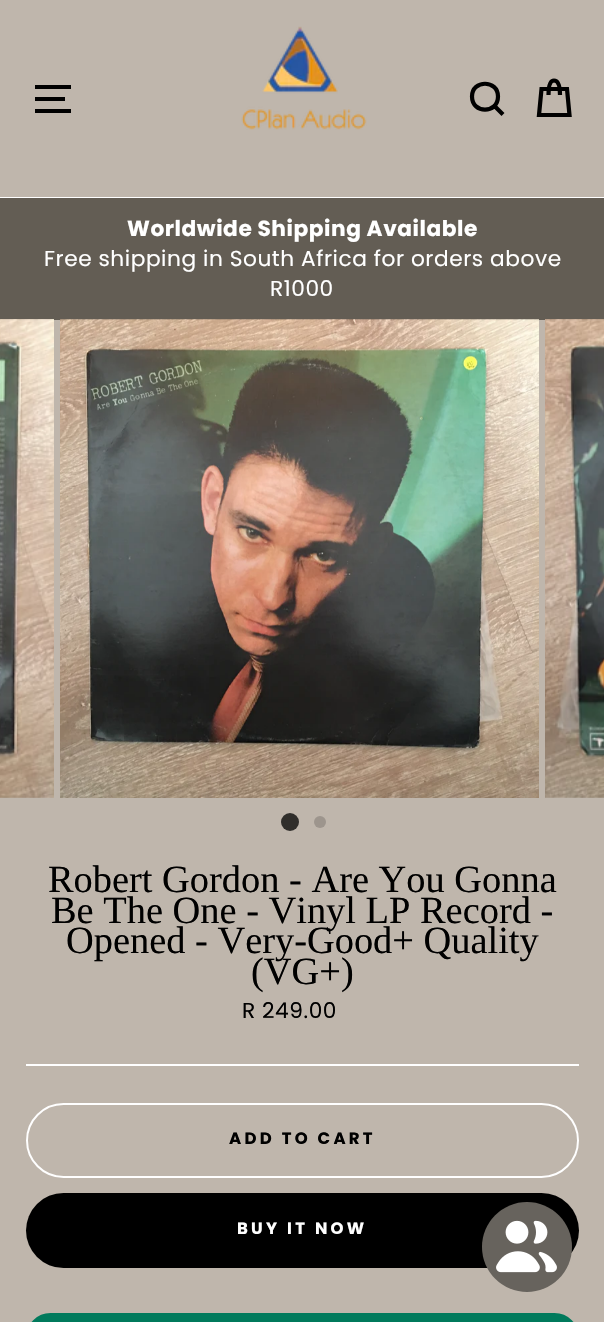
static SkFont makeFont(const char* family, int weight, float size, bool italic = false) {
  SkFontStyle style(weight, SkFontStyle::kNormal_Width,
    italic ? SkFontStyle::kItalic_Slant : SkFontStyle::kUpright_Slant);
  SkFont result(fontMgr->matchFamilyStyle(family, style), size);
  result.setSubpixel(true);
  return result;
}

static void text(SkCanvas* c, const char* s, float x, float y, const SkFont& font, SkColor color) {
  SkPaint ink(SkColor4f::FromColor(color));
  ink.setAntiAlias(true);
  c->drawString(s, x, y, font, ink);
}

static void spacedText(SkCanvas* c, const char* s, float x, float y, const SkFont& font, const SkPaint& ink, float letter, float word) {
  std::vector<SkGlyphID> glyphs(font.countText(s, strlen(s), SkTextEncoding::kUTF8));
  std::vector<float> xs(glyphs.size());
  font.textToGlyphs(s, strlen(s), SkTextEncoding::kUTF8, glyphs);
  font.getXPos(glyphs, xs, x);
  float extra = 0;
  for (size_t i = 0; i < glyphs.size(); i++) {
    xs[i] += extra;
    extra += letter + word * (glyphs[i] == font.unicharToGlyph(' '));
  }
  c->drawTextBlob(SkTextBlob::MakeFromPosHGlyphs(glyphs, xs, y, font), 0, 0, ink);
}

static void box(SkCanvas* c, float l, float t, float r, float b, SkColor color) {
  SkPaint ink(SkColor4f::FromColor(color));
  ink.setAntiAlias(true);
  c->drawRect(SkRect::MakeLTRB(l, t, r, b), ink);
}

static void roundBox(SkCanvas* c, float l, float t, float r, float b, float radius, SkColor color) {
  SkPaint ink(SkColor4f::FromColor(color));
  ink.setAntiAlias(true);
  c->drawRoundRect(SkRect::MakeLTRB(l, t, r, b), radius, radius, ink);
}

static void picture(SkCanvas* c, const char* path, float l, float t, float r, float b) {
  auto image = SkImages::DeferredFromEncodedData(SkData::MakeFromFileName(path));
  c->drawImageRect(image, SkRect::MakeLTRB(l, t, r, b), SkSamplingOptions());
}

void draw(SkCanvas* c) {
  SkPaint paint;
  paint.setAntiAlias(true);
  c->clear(0xffbfb6ac);
  box(c, 0, 197, 604, 198, 0xffffffff);
  paint.setStyle(SkPaint::kStroke_Style);
  paint.setStrokeWidth(4.2f);
  paint.setColor(0xff000000);
  c->drawPath(SkPathBuilder().moveTo(35, 87).lineTo(71, 87).moveTo(35, 99).lineTo(65, 99).moveTo(35, 111).lineTo(71, 111).detach(), paint);
  picture(c, "img_01.png", 241, 26, 367, 130);
  c->drawPath(SkPathBuilder().moveTo(498, 96.5f).cubicTo(498, 114, 472, 114, 472, 96.5f).cubicTo(472, 79.5f, 498, 79.5f, 498, 96.5f).close().moveTo(503, 114.5f).lineTo(494.5f, 106).detach(), paint);
  c->drawPath(SkPathBuilder().moveTo(548.5f, 95).cubicTo(548.5f, 83.5f, 551, 80.5f, 554, 80.5f).cubicTo(557.5f, 80.5f, 560, 83.5f, 560, 95).moveTo(541.5f, 89).lineTo(567, 89).lineTo(569.5f, 115).lineTo(539, 115).close().detach(), paint);
  box(c, 0, 198, 604, 320, 0xff635d54);
  SkFont face1 = makeFont("Poppins", 700, 21.7f);
  paint.setStyle(SkPaint::kFill_Style);
  paint.setColor(0xffffffff);
  spacedText(c, "Worldwide Shipping Available", 127, 236, face1, paint, 0.55f, 0);
  SkFont face2 = makeFont("Poppins", 400, 21.7f);
  spacedText(c, "Free shipping in South Africa for orders above", 44, 266, face2, paint, 0.55f, 0);
  spacedText(c, "R1000", 270, 296, face2, paint, 0.55f, 0);
  picture(c, "img_02.png", 0, 319, 54, 798);
  picture(c, "img_03.png", 60, 319, 539, 798);
  picture(c, "img_04.png", 545, 319, 604, 798);
  paint.setColor(0xff302e2b);
  c->drawCircle(290, 822, 9, paint);
  paint.setColor(0xff9d958d);
  c->drawCircle(320, 822, 6, paint);
  SkFont face3 = makeFont("Liberation Serif", 400, 38.4f);
  text(c, "Robert Gordon - Are You Gonna", 48, 892, face3, 0xff000000);
  text(c, "Be The One - Vinyl LP Record -", 51, 923, face3, 0xff000000);
  text(c, "Opened - Very-Good+ Quality", 66, 953, face3, 0xff000000);
  text(c, "(VG+)", 251, 984, face3, 0xff000000);
  paint.setColor(0xff000000);
  spacedText(c, "R 249.00", 242, 1018, face2, paint, 0.55f, 0);
  box(c, 26, 1064, 579, 1066, 0xffffffff);
  paint.setStyle(SkPaint::kStroke_Style);
  paint.setStrokeWidth(2);
  paint.setColor(0xffffffff);
  c->drawRoundRect(SkRect::MakeLTRB(27, 1104, 578, 1177), 36.5f, 36.5f, paint);
  SkFont face4 = makeFont("Poppins", 700, 16.5f);
  paint.setStyle(SkPaint::kFill_Style);
  paint.setColor(0xff000000);
  spacedText(c, "ADD TO CART", 229, 1144, face4, paint, 3.25f, 0);
  roundBox(c, 26, 1193, 579, 1268, 37.5f, 0xff000000);
  paint.setColor(0xffffffff);
  spacedText(c, "BUY IT NOW", 237, 1234, face4, paint, 3.25f, 0);
  paint.setColor(0xff007a5c);
  c->drawRoundRect(SkRect::MakeLTRB(27, 1314, 578, 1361), 36.5f, 36.5f, paint);
  paint.setStyle(SkPaint::kStroke_Style);
  c->drawRoundRect(SkRect::MakeLTRB(27, 1314, 578, 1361), 36.5f, 36.5f, paint);
  paint.setStyle(SkPaint::kFill_Style);
  paint.setColor(0xff67635d);
  c->drawCircle(527, 1247, 45, paint);
  picture(c, "img_05.png", 496, 1220, 557, 1273);
}
